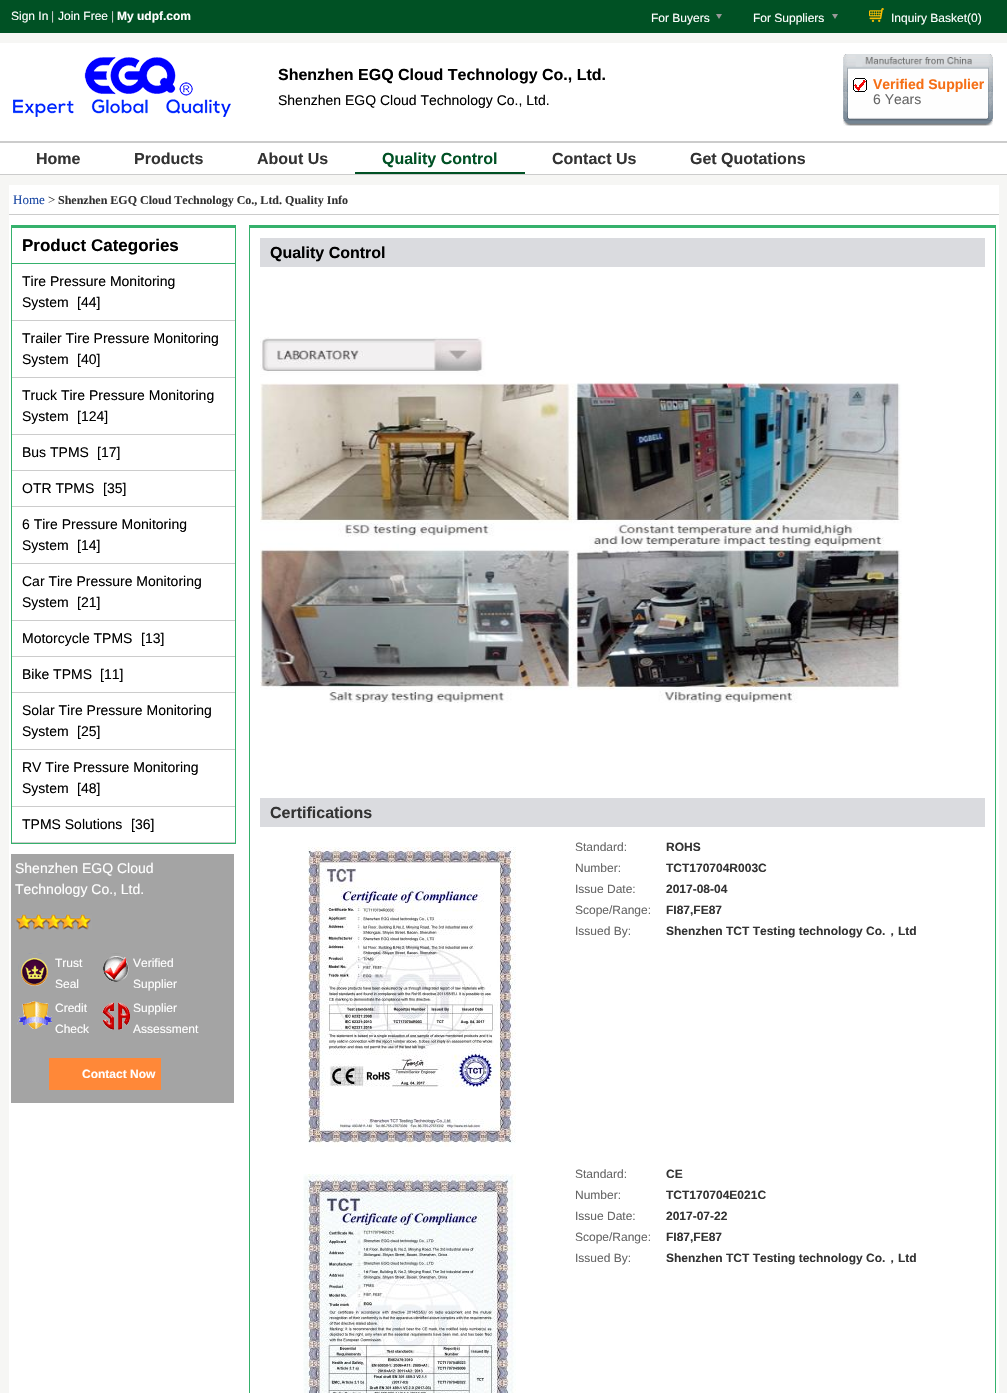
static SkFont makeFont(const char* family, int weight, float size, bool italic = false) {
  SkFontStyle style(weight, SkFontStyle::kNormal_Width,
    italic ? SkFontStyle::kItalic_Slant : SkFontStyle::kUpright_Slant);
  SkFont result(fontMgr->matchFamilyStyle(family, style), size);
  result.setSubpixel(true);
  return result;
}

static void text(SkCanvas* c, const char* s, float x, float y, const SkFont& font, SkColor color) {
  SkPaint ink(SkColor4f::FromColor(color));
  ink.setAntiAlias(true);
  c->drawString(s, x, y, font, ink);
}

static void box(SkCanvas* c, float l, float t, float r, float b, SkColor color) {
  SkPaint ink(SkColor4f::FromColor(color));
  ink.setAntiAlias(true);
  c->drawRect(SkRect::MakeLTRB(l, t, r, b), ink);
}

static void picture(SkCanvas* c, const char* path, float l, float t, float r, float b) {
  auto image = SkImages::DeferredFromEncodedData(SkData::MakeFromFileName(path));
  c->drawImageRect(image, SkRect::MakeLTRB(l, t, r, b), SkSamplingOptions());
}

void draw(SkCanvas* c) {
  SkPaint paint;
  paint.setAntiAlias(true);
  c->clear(0xfff6f6f4);
  box(c, 0, 0, 1007, 33, 0xff005124);
  SkFont face1 = makeFont("Liberation Sans", 400, 12);
  text(c, "Sign In", 11, 20, face1, 0xffffffff);
  text(c, "|", 51, 20, face1, 0xffcccccc);
  text(c, "Join Free", 58, 20, face1, 0xffffffff);
  text(c, "|", 111, 20, face1, 0xffcccccc);
  SkFont face2 = makeFont("Liberation Sans", 700, 12);
  text(c, "My udpf.com", 117, 20, face2, 0xffffffff);
  text(c, "For Buyers", 651, 22, face1, 0xffffffff);
  picture(c, "img_01.png", 716, 14, 722, 19);
  text(c, "For Suppliers", 753, 22, face1, 0xffffffff);
  picture(c, "img_01.png", 832, 14, 838, 19);
  picture(c, "img_02.png", 869, 8, 884, 22);
  text(c, "Inquiry Basket(0)", 891, 22, face1, 0xffffffff);
  box(c, 0, 43, 1007, 141, 0xffffffff);
  picture(c, "img_03.png", 13, 57, 231, 117);
  SkFont face3 = makeFont("Liberation Sans", 700, 16);
  text(c, "Shenzhen EGQ Cloud Technology Co., Ltd.", 278, 80, face3, 0xff000000);
  SkFont face4 = makeFont("Liberation Sans", 400, 14);
  text(c, "Shenzhen EGQ Cloud Technology Co., Ltd.", 278, 105, face4, 0xff000000);
  picture(c, "img_04.png", 843, 54, 993, 126);
  picture(c, "img_05.png", 853, 78, 867, 92);
  SkFont face5 = makeFont("Liberation Sans", 700, 14);
  text(c, "Verified Supplier", 873, 89, face5, 0xfff56f16);
  text(c, "6 Years", 873, 104, face4, 0xff666666);
  box(c, 0, 143, 1007, 174, 0xffffffff);
  box(c, 0, 141, 1007, 143, 0xffcccccc);
  box(c, 0, 174, 1007, 175, 0xffcccccc);
  text(c, "Home", 36, 164, face3, 0xff333333);
  text(c, "Products", 134, 164, face3, 0xff333333);
  text(c, "About Us", 257, 164, face3, 0xff333333);
  box(c, 355, 172, 525, 174, 0xff005124);
  text(c, "Quality Control", 382, 164, face3, 0xff005124);
  text(c, "Contact Us", 552, 164, face3, 0xff333333);
  text(c, "Get Quotations", 690, 164, face3, 0xff333333);
  box(c, 9, 185, 999, 1393, 0xffffffff);
  box(c, 9, 214, 999, 215, 0xffcccccc);
  SkFont face6 = makeFont("Liberation Serif", 400, 13);
  text(c, "Home", 13, 204, face6, 0xff1c49a4);
  text(c, ">", 48, 204, face6, 0xff333333);
  SkFont face7 = makeFont("Liberation Serif", 700, 12);
  text(c, "Shenzhen EGQ Cloud Technology Co., Ltd. Quality Info", 58, 204, face7, 0xff333333);
  box(c, 11, 225, 236, 228, 0xff35b16c);
  box(c, 235, 225, 236, 844, 0xff35b16c);
  box(c, 11, 843, 236, 844, 0xff35b16c);
  box(c, 11, 225, 12, 844, 0xff35b16c);
  box(c, 12, 263, 235, 264, 0xff35b16c);
  SkFont face8 = makeFont("Liberation Sans", 700, 17);
  text(c, "Product Categories", 22, 251, face8, 0xff000000);
  box(c, 12, 320, 235, 321, 0xffcccccc);
  text(c, "Tire Pressure Monitoring", 22, 286, face4, 0xff000000);
  text(c, "System", 22, 307, face4, 0xff000000);
  text(c, "[44]", 77, 307, face4, 0xff000000);
  box(c, 12, 377, 235, 378, 0xffcccccc);
  text(c, "Trailer Tire Pressure Monitoring", 22, 343, face4, 0xff000000);
  text(c, "System", 22, 364, face4, 0xff000000);
  text(c, "[40]", 77, 364, face4, 0xff000000);
  box(c, 12, 434, 235, 435, 0xffcccccc);
  text(c, "Truck Tire Pressure Monitoring", 22, 400, face4, 0xff000000);
  text(c, "System", 22, 421, face4, 0xff000000);
  text(c, "[124]", 77, 421, face4, 0xff000000);
  box(c, 12, 470, 235, 471, 0xffcccccc);
  text(c, "Bus TPMS", 22, 457, face4, 0xff000000);
  text(c, "[17]", 97, 457, face4, 0xff000000);
  box(c, 12, 506, 235, 507, 0xffcccccc);
  text(c, "OTR TPMS", 22, 493, face4, 0xff000000);
  text(c, "[35]", 103, 493, face4, 0xff000000);
  box(c, 12, 563, 235, 564, 0xffcccccc);
  text(c, "6 Tire Pressure Monitoring", 22, 529, face4, 0xff000000);
  text(c, "System", 22, 550, face4, 0xff000000);
  text(c, "[14]", 77, 550, face4, 0xff000000);
  box(c, 12, 620, 235, 621, 0xffcccccc);
  text(c, "Car Tire Pressure Monitoring", 22, 586, face4, 0xff000000);
  text(c, "System", 22, 607, face4, 0xff000000);
  text(c, "[21]", 77, 607, face4, 0xff000000);
  box(c, 12, 656, 235, 657, 0xffcccccc);
  text(c, "Motorcycle TPMS", 22, 643, face4, 0xff000000);
  text(c, "[13]", 141, 643, face4, 0xff000000);
  box(c, 12, 692, 235, 693, 0xffcccccc);
  text(c, "Bike TPMS", 22, 679, face4, 0xff000000);
  text(c, "[11]", 100, 679, face4, 0xff000000);
  box(c, 12, 749, 235, 750, 0xffcccccc);
  text(c, "Solar Tire Pressure Monitoring", 22, 715, face4, 0xff000000);
  text(c, "System", 22, 736, face4, 0xff000000);
  text(c, "[25]", 77, 736, face4, 0xff000000);
  box(c, 12, 806, 235, 807, 0xffcccccc);
  text(c, "RV Tire Pressure Monitoring", 22, 772, face4, 0xff000000);
  text(c, "System", 22, 793, face4, 0xff000000);
  text(c, "[48]", 77, 793, face4, 0xff000000);
  box(c, 12, 842, 235, 843, 0xffcccccc);
  text(c, "TPMS Solutions", 22, 829, face4, 0xff000000);
  text(c, "[36]", 131, 829, face4, 0xff000000);
  box(c, 11, 854, 234, 1103, 0xffa4a4a4);
  text(c, "Shenzhen EGQ Cloud", 15, 873, face4, 0xffffffff);
  text(c, "Technology Co., Ltd.", 15, 894, face4, 0xffffffff);
  picture(c, "img_06.png", 15, 913, 92, 930);
  picture(c, "img_07.png", 17, 953, 130, 1030);
  text(c, "Trust", 55, 967, face1, 0xffffffff);
  text(c, "Seal", 55, 988, face1, 0xffffffff);
  text(c, "Verified", 133, 967, face1, 0xffffffff);
  text(c, "Supplier", 133, 988, face1, 0xffffffff);
  text(c, "Credit", 55, 1012, face1, 0xffffffff);
  text(c, "Check", 55, 1033, face1, 0xffffffff);
  text(c, "Supplier", 133, 1012, face1, 0xffffffff);
  text(c, "Assessment", 133, 1033, face1, 0xffffffff);
  box(c, 49, 1058, 161, 1090, 0xffff8838);
  text(c, "Contact Now", 82, 1078, face2, 0xffffffff);
  box(c, 249, 225, 996, 228, 0xff35b16c);
  box(c, 995, 225, 996, 1393, 0xff35b16c);
  box(c, 249, 225, 250, 1393, 0xff35b16c);
  box(c, 260, 238, 985, 267, 0xffdadbdf);
  text(c, "Quality Control", 270, 258, face3, 0xff000000);
  picture(c, "img_08.png", 260, 337, 902, 703);
  box(c, 260, 798, 985, 827, 0xffdadbdf);
  text(c, "Certifications", 270, 818, face3, 0xff333333);
  picture(c, "img_09.png", 307, 847, 516, 1147);
  text(c, "Standard:", 575, 851, face1, 0xff666666);
  text(c, "ROHS", 666, 851, face2, 0xff333333);
  text(c, "Number:", 575, 872, face1, 0xff666666);
  text(c, "TCT170704R003C", 666, 872, face2, 0xff333333);
  text(c, "Issue Date:", 575, 893, face1, 0xff666666);
  text(c, "2017-08-04", 666, 893, face2, 0xff333333);
  text(c, "Scope/Range:", 575, 914, face1, 0xff666666);
  text(c, "FI87,FE87", 666, 914, face2, 0xff333333);
  text(c, "Issued By:", 575, 935, face1, 0xff666666);
  text(c, "Shenzhen TCT Testing technology Co.", 666, 935, face2, 0xff333333);
  SkFont face9 = makeFont("WenQuanYi Zen Hei", 700, 12);
  text(c, "，", 886, 935, face9, 0xff333333);
  text(c, "Ltd", 898, 935, face2, 0xff333333);
  picture(c, "img_10.png", 303, 1174, 516, 1393);
  text(c, "Standard:", 575, 1178, face1, 0xff666666);
  text(c, "CE", 666, 1178, face2, 0xff333333);
  text(c, "Number:", 575, 1199, face1, 0xff666666);
  text(c, "TCT170704E021C", 666, 1199, face2, 0xff333333);
  text(c, "Issue Date:", 575, 1220, face1, 0xff666666);
  text(c, "2017-07-22", 666, 1220, face2, 0xff333333);
  text(c, "Scope/Range:", 575, 1241, face1, 0xff666666);
  text(c, "FI87,FE87", 666, 1241, face2, 0xff333333);
  text(c, "Issued By:", 575, 1262, face1, 0xff666666);
  text(c, "Shenzhen TCT Testing technology Co.", 666, 1262, face2, 0xff333333);
  text(c, "，", 886, 1262, face9, 0xff333333);
  text(c, "Ltd", 898, 1262, face2, 0xff333333);
}
